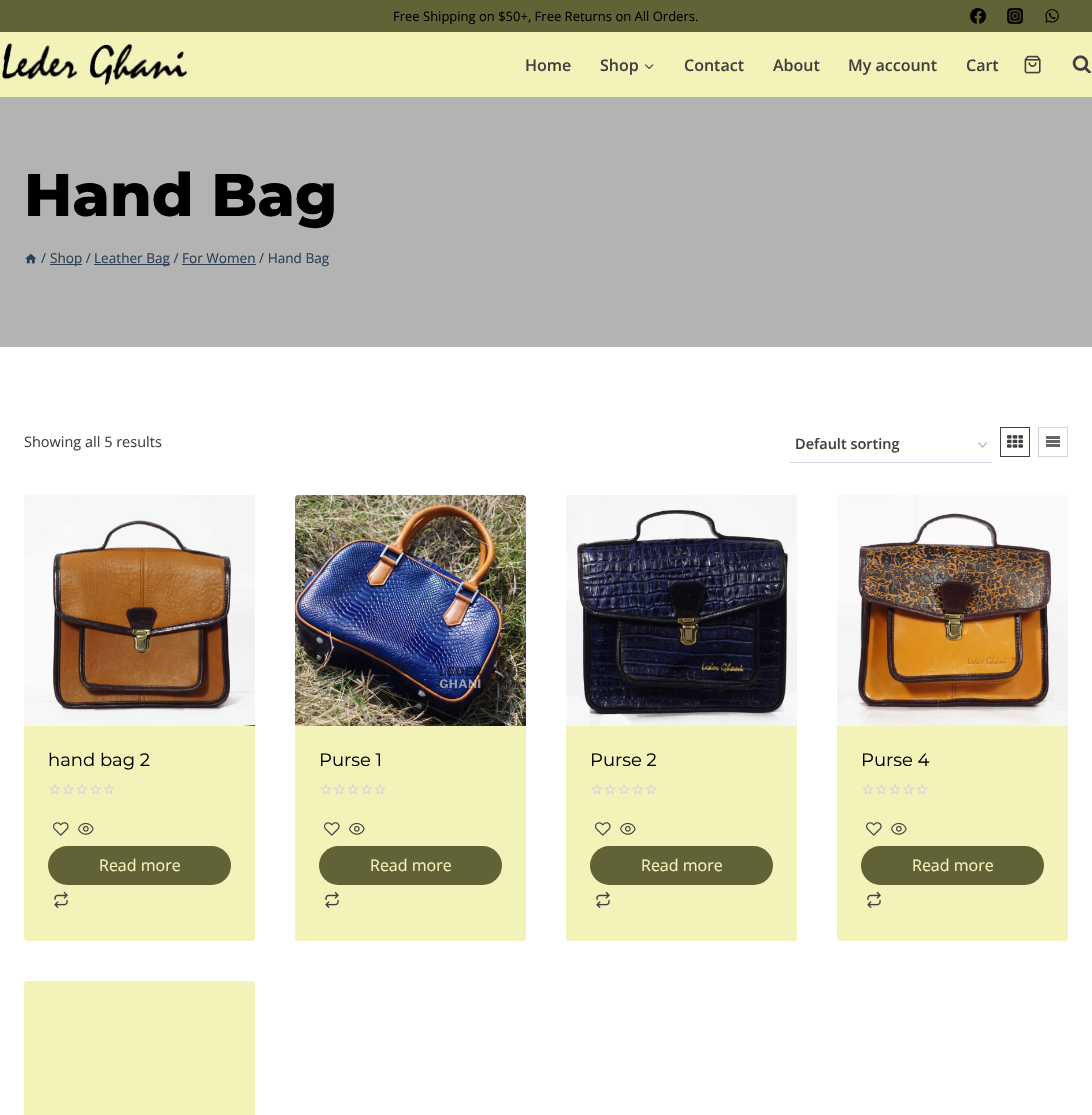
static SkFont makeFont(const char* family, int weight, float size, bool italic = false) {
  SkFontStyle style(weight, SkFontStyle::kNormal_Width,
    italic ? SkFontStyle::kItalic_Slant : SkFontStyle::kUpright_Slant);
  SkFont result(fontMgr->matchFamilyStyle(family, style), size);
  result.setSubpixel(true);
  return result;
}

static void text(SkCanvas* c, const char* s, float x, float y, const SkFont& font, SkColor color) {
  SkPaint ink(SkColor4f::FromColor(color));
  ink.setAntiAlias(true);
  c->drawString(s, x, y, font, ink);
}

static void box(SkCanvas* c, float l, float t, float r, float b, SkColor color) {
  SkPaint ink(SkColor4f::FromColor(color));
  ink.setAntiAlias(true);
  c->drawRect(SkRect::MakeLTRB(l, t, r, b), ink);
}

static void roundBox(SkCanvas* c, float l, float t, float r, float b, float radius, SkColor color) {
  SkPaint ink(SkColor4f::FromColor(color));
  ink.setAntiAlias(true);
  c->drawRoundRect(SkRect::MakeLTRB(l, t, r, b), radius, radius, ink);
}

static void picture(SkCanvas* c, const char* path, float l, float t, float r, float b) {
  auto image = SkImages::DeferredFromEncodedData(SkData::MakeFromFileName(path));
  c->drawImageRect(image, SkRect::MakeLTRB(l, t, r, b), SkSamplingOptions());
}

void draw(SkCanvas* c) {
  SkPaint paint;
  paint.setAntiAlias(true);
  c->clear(0xffffffff);
  box(c, 0, 32, 1092, 97, 0xfff2f2b9);
  box(c, 0, 0, 1092, 32, 0xff626237);
  SkFont face1 = makeFont("Open Sans", 400, 13);
  text(c, "Free Shipping on $50+, Free Returns on All Orders.", 393, 21, face1, 0xff000000);
  picture(c, "img_01.png", 970, 8, 986, 24);
  picture(c, "img_02.png", 1007, 8, 1023, 24);
  picture(c, "img_03.png", 1045, 9, 1059, 23);
  picture(c, "img_04.png", 2, 43, 188, 86);
  SkFont face2 = makeFont("Open Sans", 600, 16);
  text(c, "Home", 525, 71, face2, 0xff414141);
  text(c, "Shop", 600, 71, face2, 0xff414141);
  picture(c, "img_05.png", 645, 64, 654, 70);
  text(c, "Contact", 684, 71, face2, 0xff414141);
  text(c, "About", 773, 71, face2, 0xff414141);
  text(c, "My account", 848, 71, face2, 0xff414141);
  text(c, "Cart", 966, 71, face2, 0xff414141);
  picture(c, "img_06.png", 1024, 55, 1041, 74);
  picture(c, "img_07.png", 1072, 55, 1091, 73);
  box(c, 0, 97, 1092, 347, 0xffb3b3b3);
  SkFont face3 = makeFont("Montserrat", 800, 60);
  text(c, "Hand Bag", 24, 216, face3, 0xff000000);
  picture(c, "img_08.png", 25, 253, 37, 264);
  SkFont face4 = makeFont("Open Sans", 400, 13.6f);
  text(c, "/", 41, 263, face4, 0xff2d3e50);
  box(c, 50, 264, 82, 265, 0xff2d3e50);
  text(c, "Shop /", 50, 263, face4, 0xff2d3e50);
  box(c, 94, 264, 170, 265, 0xff2d3e50);
  text(c, "Leather Bag / For Women / Hand Bag", 94, 263, face4, 0xff2d3e50);
  box(c, 182, 264, 256, 265, 0xff2d3e50);
  SkFont face5 = makeFont("Open Sans", 400, 14.5f);
  text(c, "Showing all 5 results", 24, 447, face5, 0xff414141);
  paint.setStyle(SkPaint::kStroke_Style);
  paint.setStrokeWidth(1.4f);
  paint.setColor(0xffbbbbbb);
  c->drawPath(SkPathBuilder().moveTo(978.5f, 442.5f).lineTo(982.5f, 447).lineTo(987, 442.5f).detach(), paint);
  box(c, 790, 462, 992, 463, 0xffcbd5e0);
  SkFont face6 = makeFont("Open Sans", 600, 14.5f);
  text(c, "Default sorting", 795, 449, face6, 0xff414141);
  paint.setStrokeWidth(1);
  paint.setColor(0xff414141);
  c->drawRect(SkRect::MakeLTRB(1000.5f, 427.5f, 1029.5f, 456.5f), paint);
  picture(c, "img_09.png", 1007, 435, 1023, 448);
  paint.setColor(0xffcbd5e0);
  c->drawRect(SkRect::MakeLTRB(1038.5f, 427.5f, 1067.5f, 456.5f), paint);
  picture(c, "img_10.png", 1046, 436, 1060, 447);
  roundBox(c, 24, 495, 255, 941, 4, 0xfff2f2b9);
  picture(c, "img_11.png", 24, 495, 255, 726);
  SkFont face7 = makeFont("Montserrat", 400, 18);
  text(c, "hand bag 2", 48, 766, face7, 0xff000000);
  picture(c, "img_12.png", 49, 784, 115, 795);
  picture(c, "img_13.png", 53, 822, 69, 836);
  picture(c, "img_14.png", 78, 822, 94, 835);
  roundBox(c, 48, 846, 231, 885, 19.5f, 0xff626237);
  SkFont face8 = makeFont("Open Sans", 400, 16);
  text(c, "Read more", 99, 871, face8, 0xfff2f2b9);
  picture(c, "img_15.png", 54, 891, 68, 908);
  roundBox(c, 295, 495, 526, 941, 4, 0xfff2f2b9);
  picture(c, "img_16.png", 295, 495, 526, 726);
  text(c, "Purse 1", 319, 766, face7, 0xff000000);
  picture(c, "img_12.png", 320, 784, 386, 795);
  picture(c, "img_13.png", 324, 822, 340, 836);
  picture(c, "img_14.png", 349, 822, 365, 835);
  roundBox(c, 319, 846, 502, 885, 19.5f, 0xff626237);
  text(c, "Read more", 370, 871, face8, 0xfff2f2b9);
  picture(c, "img_15.png", 325, 891, 339, 908);
  roundBox(c, 566, 495, 797, 941, 4, 0xfff2f2b9);
  picture(c, "img_17.png", 566, 495, 797, 726);
  text(c, "Purse 2", 590, 766, face7, 0xff000000);
  picture(c, "img_12.png", 591, 784, 657, 795);
  picture(c, "img_13.png", 595, 822, 611, 836);
  picture(c, "img_14.png", 620, 822, 636, 835);
  roundBox(c, 590, 846, 773, 885, 19.5f, 0xff626237);
  text(c, "Read more", 641, 871, face8, 0xfff2f2b9);
  picture(c, "img_15.png", 596, 891, 610, 908);
  roundBox(c, 837, 495, 1068, 941, 4, 0xfff2f2b9);
  picture(c, "img_18.png", 837, 495, 1068, 726);
  text(c, "Purse 4", 861, 766, face7, 0xff000000);
  picture(c, "img_12.png", 862, 784, 928, 795);
  picture(c, "img_13.png", 866, 822, 882, 836);
  picture(c, "img_14.png", 891, 822, 907, 835);
  roundBox(c, 861, 846, 1044, 885, 19.5f, 0xff626237);
  text(c, "Read more", 912, 871, face8, 0xfff2f2b9);
  picture(c, "img_15.png", 867, 891, 881, 908);
  roundBox(c, 24, 981, 255, 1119, 4, 0xfff2f2b9);
}
